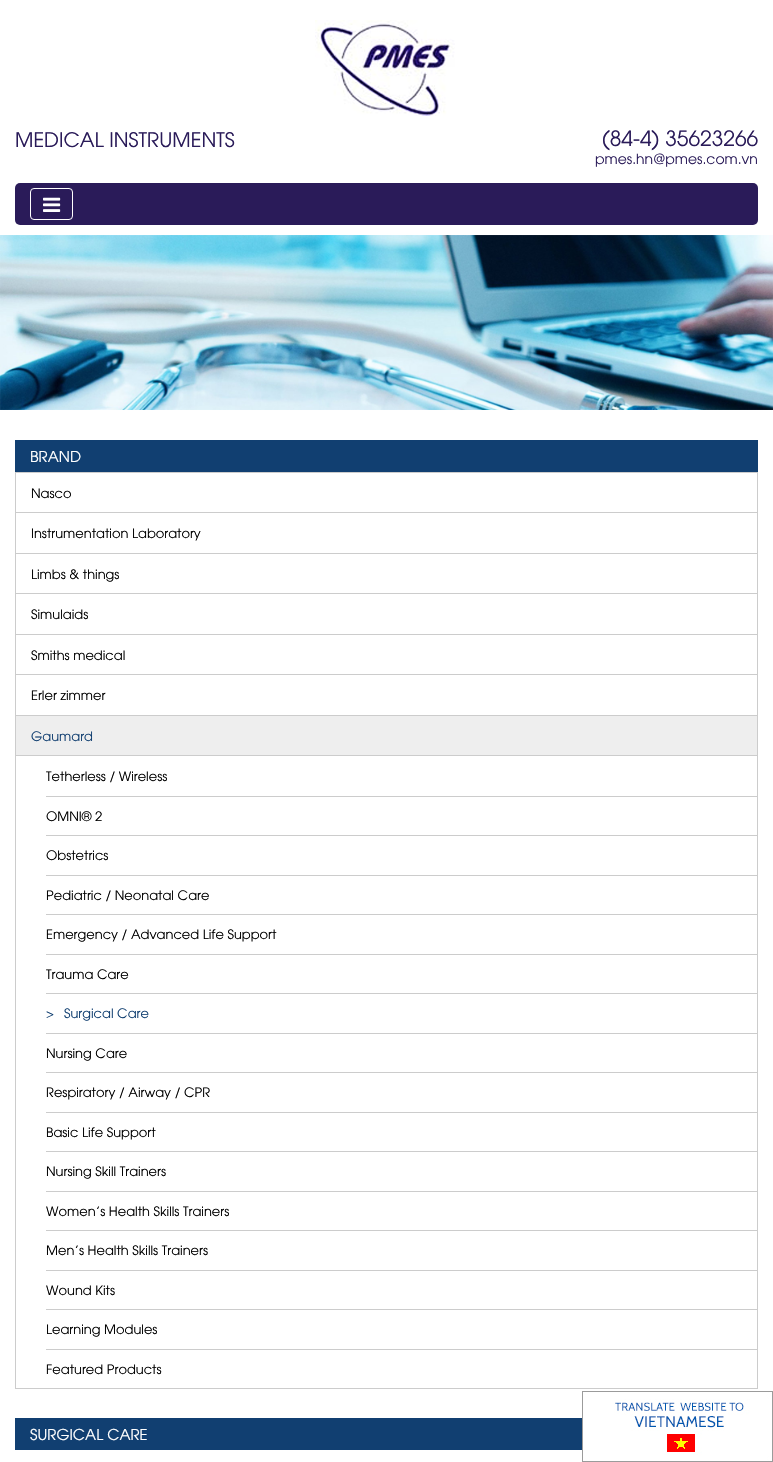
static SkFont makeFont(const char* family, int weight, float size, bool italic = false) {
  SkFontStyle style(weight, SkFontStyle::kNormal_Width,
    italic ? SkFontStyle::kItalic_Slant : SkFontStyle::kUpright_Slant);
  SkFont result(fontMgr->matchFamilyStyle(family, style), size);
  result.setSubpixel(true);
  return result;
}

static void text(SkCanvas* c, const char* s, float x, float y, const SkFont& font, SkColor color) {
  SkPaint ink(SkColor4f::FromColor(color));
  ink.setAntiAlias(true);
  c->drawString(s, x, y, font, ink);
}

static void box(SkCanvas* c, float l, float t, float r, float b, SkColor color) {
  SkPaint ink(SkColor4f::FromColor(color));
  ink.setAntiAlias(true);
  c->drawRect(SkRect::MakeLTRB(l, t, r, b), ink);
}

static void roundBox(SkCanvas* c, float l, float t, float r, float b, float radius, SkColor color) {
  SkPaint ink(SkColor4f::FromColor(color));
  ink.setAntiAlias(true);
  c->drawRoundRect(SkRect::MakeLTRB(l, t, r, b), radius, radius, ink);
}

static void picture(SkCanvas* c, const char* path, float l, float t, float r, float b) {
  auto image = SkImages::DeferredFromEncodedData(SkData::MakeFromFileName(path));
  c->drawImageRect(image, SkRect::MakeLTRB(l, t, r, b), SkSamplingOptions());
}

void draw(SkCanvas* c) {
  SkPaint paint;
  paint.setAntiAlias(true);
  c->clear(0xffffffff);
  picture(c, "img_01.png", 315, 20, 455, 116);
  SkFont face1 = makeFont("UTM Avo", 400, 20);
  text(c, "MEDICAL INSTRUMENTS", 15, 147, face1, 0xff2a1b59);
  SkFont face2 = makeFont("UTM Avo", 400, 21);
  text(c, "(84-4) 35623266", 602, 146, face2, 0xff2a1b59);
  SkFont face3 = makeFont("UTM Avo", 400, 14);
  text(c, "pmes.hn@pmes.com.vn", 595, 164, face3, 0xff2a1b59);
  roundBox(c, 15, 183, 758, 225, 5, 0xff2a1b59);
  paint.setStyle(SkPaint::kStroke_Style);
  paint.setStrokeWidth(1);
  paint.setColor(0xffffffff);
  c->drawRoundRect(SkRect::MakeLTRB(30.5f, 188.5f, 72.5f, 219.5f), 3.5f, 3.5f, paint);
  picture(c, "img_02.png", 43, 197, 61, 212);
  picture(c, "img_03.png", 0, 235, 773, 410);
  box(c, 15, 440, 758, 472, 0xff113f71);
  SkFont face4 = makeFont("UTM Avo", 400, 15);
  text(c, "BRAND", 30, 462, face4, 0xffffffff);
  paint.setColor(0xffcccccc);
  c->drawRect(SkRect::MakeLTRB(15.5f, 472.5f, 757.5f, 512.5f), paint);
  SkFont face5 = makeFont("UTM Avo", 400, 13);
  text(c, "Nasco", 31, 498, face5, 0xff000000);
  c->drawRect(SkRect::MakeLTRB(15.5f, 512.5f, 757.5f, 553.5f), paint);
  text(c, "Instrumentation Laboratory", 31, 538, face5, 0xff000000);
  c->drawRect(SkRect::MakeLTRB(15.5f, 553.5f, 757.5f, 593.5f), paint);
  text(c, "Limbs & things", 31, 579, face5, 0xff000000);
  c->drawRect(SkRect::MakeLTRB(15.5f, 593.5f, 757.5f, 634.5f), paint);
  text(c, "Simulaids", 31, 619, face5, 0xff000000);
  c->drawRect(SkRect::MakeLTRB(15.5f, 634.5f, 757.5f, 674.5f), paint);
  text(c, "Smiths medical", 31, 660, face5, 0xff000000);
  c->drawRect(SkRect::MakeLTRB(15.5f, 674.5f, 757.5f, 715.5f), paint);
  text(c, "Erler zimmer", 31, 700, face5, 0xff000000);
  c->drawRect(SkRect::MakeLTRB(15.5f, 715.5f, 757.5f, 1388.5f), paint);
  box(c, 16, 716, 757, 755, 0xffeeeeee);
  box(c, 16, 755, 757, 756, 0xffcccccc);
  text(c, "Gaumard", 31, 741, face5, 0xff113f71);
  text(c, "Tetherless / Wireless", 46, 781, face5, 0xff000000);
  box(c, 46, 796, 757, 797, 0xffcccccc);
  text(c, "OMNI® 2", 46, 821, face5, 0xff000000);
  box(c, 46, 835, 757, 836, 0xffcccccc);
  text(c, "Obstetrics", 46, 860, face5, 0xff000000);
  box(c, 46, 875, 757, 876, 0xffcccccc);
  text(c, "Pediatric / Neonatal Care", 46, 900, face5, 0xff000000);
  box(c, 46, 914, 757, 915, 0xffcccccc);
  text(c, "Emergency / Advanced Life Support", 46, 939, face5, 0xff000000);
  box(c, 46, 954, 757, 955, 0xffcccccc);
  text(c, "Trauma Care", 46, 979, face5, 0xff000000);
  box(c, 46, 993, 757, 994, 0xffcccccc);
  text(c, ">", 46, 1018, face5, 0xff113f71);
  text(c, "Surgical Care", 64, 1018, face5, 0xff113f71);
  box(c, 46, 1033, 757, 1034, 0xffcccccc);
  text(c, "Nursing Care", 46, 1058, face5, 0xff000000);
  box(c, 46, 1072, 757, 1073, 0xffcccccc);
  text(c, "Respiratory / Airway / CPR", 46, 1097, face5, 0xff000000);
  box(c, 46, 1112, 757, 1113, 0xffcccccc);
  text(c, "Basic Life Support", 46, 1137, face5, 0xff000000);
  box(c, 46, 1151, 757, 1152, 0xffcccccc);
  text(c, "Nursing Skill Trainers", 46, 1176, face5, 0xff000000);
  box(c, 46, 1191, 757, 1192, 0xffcccccc);
  text(c, "Women’s Health Skills Trainers", 46, 1216, face5, 0xff000000);
  box(c, 46, 1230, 757, 1231, 0xffcccccc);
  text(c, "Men’s Health Skills Trainers", 46, 1255, face5, 0xff000000);
  box(c, 46, 1270, 757, 1271, 0xffcccccc);
  text(c, "Wound Kits", 46, 1295, face5, 0xff000000);
  box(c, 46, 1309, 757, 1310, 0xffcccccc);
  text(c, "Learning Modules", 46, 1334, face5, 0xff000000);
  box(c, 46, 1349, 757, 1350, 0xffcccccc);
  text(c, "Featured Products", 46, 1374, face5, 0xff000000);
  box(c, 15, 1418, 582, 1450, 0xff113f71);
  text(c, "SURGICAL CARE", 30, 1440, face4, 0xffffffff);
  picture(c, "img_04.png", 582, 1391, 773, 1462);
}
